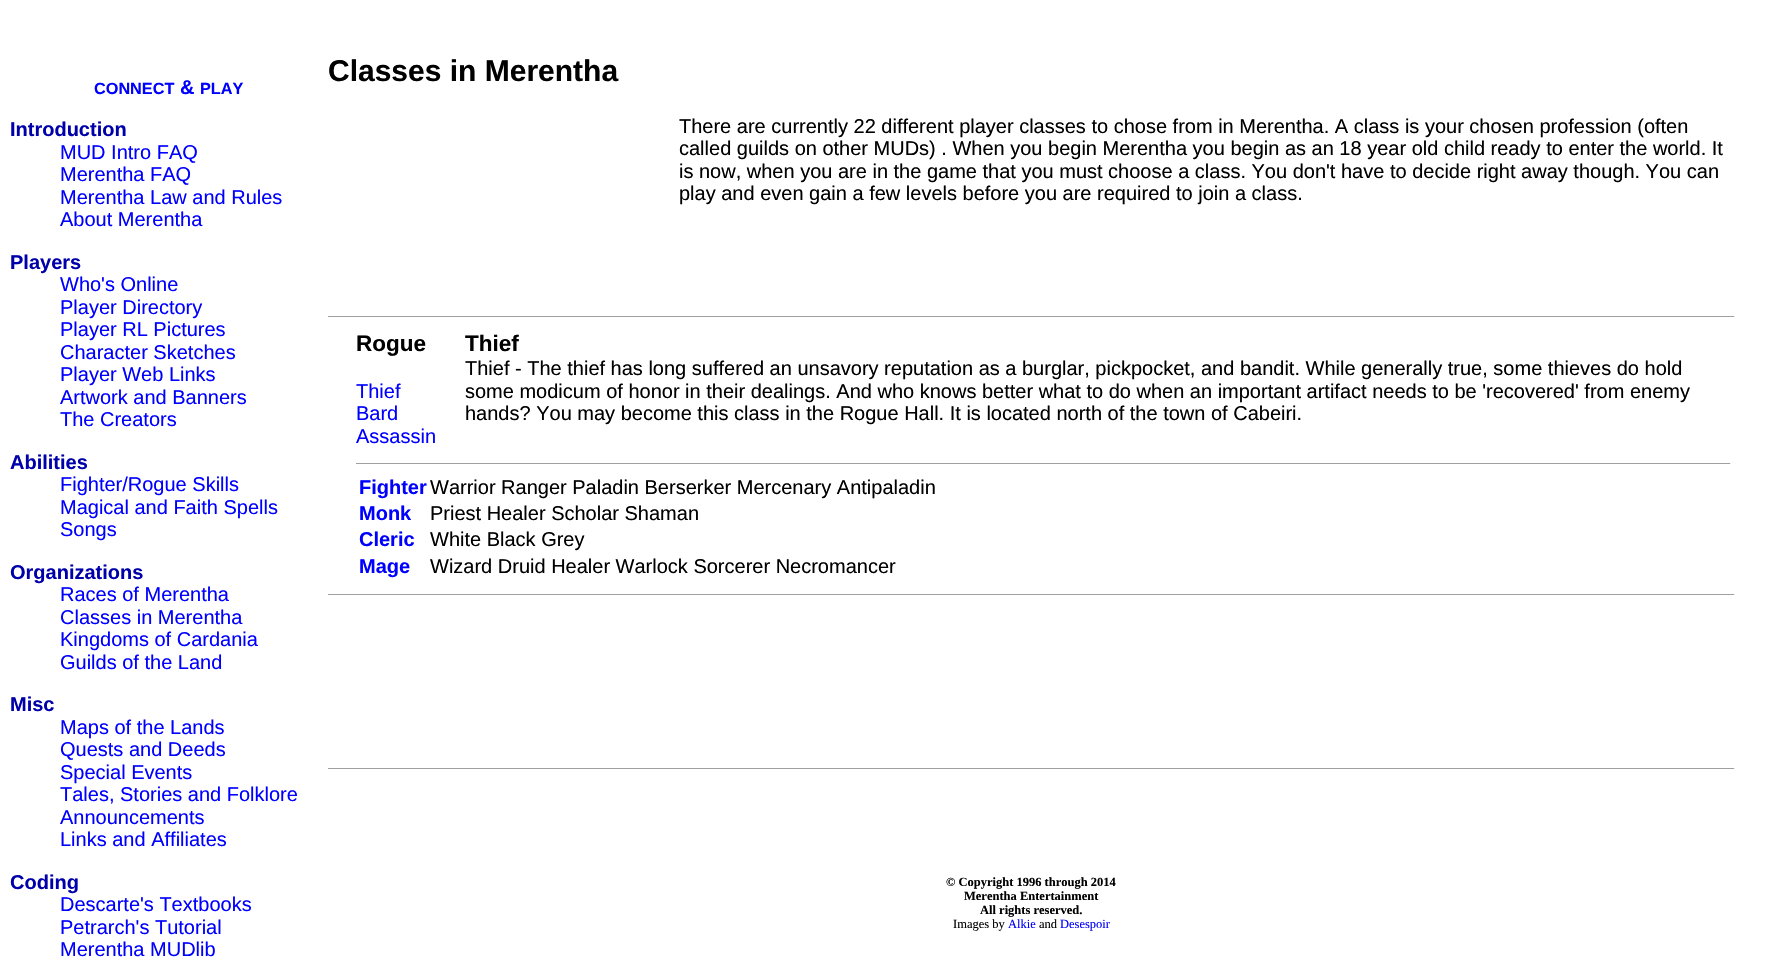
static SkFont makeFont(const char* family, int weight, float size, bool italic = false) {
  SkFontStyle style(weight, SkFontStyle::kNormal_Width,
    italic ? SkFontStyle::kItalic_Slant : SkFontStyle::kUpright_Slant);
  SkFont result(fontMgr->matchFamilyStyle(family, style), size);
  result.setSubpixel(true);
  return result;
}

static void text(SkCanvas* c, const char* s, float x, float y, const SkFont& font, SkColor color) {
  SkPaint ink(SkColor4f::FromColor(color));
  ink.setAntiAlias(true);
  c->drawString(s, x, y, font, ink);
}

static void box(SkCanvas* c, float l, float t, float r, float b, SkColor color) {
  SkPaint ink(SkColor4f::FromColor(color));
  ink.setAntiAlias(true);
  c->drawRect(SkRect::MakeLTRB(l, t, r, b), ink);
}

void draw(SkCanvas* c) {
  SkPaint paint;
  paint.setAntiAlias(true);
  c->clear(0xffffffff);
  SkFont face1 = makeFont("Liberation Sans", 700, 16.25f);
  text(c, "CONNECT", 94, 94, face1, 0xff0000ff);
  SkFont face2 = makeFont("Liberation Sans", 700, 20);
  text(c, "&", 180, 94, face2, 0xff0000ff);
  text(c, "PLAY", 200, 94, face1, 0xff0000ff);
  text(c, "Introduction", 10, 136, face2, 0xff0000aa);
  SkFont face3 = makeFont("Liberation Sans", 400, 20);
  text(c, "MUD Intro FAQ", 60, 159, face3, 0xff0000ff);
  text(c, "Merentha FAQ", 60, 181, face3, 0xff0000ff);
  text(c, "Merentha Law and Rules", 60, 204, face3, 0xff0000ff);
  text(c, "About Merentha", 60, 226, face3, 0xff0000ff);
  text(c, "Players", 10, 269, face2, 0xff0000aa);
  text(c, "Who's Online", 60, 291, face3, 0xff0000ff);
  text(c, "Player Directory", 60, 314, face3, 0xff0000ff);
  text(c, "Player RL Pictures", 60, 336, face3, 0xff0000ff);
  text(c, "Character Sketches", 60, 359, face3, 0xff0000ff);
  text(c, "Player Web Links", 60, 381, face3, 0xff0000ff);
  text(c, "Artwork and Banners", 60, 404, face3, 0xff0000ff);
  text(c, "The Creators", 60, 426, face3, 0xff0000ff);
  text(c, "Abilities", 10, 469, face2, 0xff0000aa);
  text(c, "Fighter/Rogue Skills", 60, 491, face3, 0xff0000ff);
  text(c, "Magical and Faith Spells", 60, 514, face3, 0xff0000ff);
  text(c, "Songs", 60, 536, face3, 0xff0000ff);
  text(c, "Organizations", 10, 579, face2, 0xff0000aa);
  text(c, "Races of Merentha", 60, 601, face3, 0xff0000ff);
  text(c, "Classes in Merentha", 60, 624, face3, 0xff0000ff);
  text(c, "Kingdoms of Cardania", 60, 646, face3, 0xff0000ff);
  text(c, "Guilds of the Land", 60, 669, face3, 0xff0000ff);
  text(c, "Misc", 10, 711, face2, 0xff0000aa);
  text(c, "Maps of the Lands", 60, 734, face3, 0xff0000ff);
  text(c, "Quests and Deeds", 60, 756, face3, 0xff0000ff);
  text(c, "Special Events", 60, 779, face3, 0xff0000ff);
  text(c, "Tales, Stories and Folklore", 60, 801, face3, 0xff0000ff);
  text(c, "Announcements", 60, 824, face3, 0xff0000ff);
  text(c, "Links and Affiliates", 60, 846, face3, 0xff0000ff);
  text(c, "Coding", 10, 889, face2, 0xff0000aa);
  text(c, "Descarte's Textbooks", 60, 911, face3, 0xff0000ff);
  text(c, "Petrarch's Tutorial", 60, 934, face3, 0xff0000ff);
  text(c, "Merentha MUDlib", 60, 956, face3, 0xff0000ff);
  SkFont face4 = makeFont("Liberation Sans", 700, 30);
  text(c, "Classes in Merentha", 328, 81, face4, 0xff000000);
  text(c, "There are currently 22 different player classes to chose from in Merentha. A class is your chosen profession (often", 679, 133, face3, 0xff000000);
  text(c, "called guilds on other MUDs) . When you begin Merentha you begin as an 18 year old child ready to enter the world. It", 679, 155, face3, 0xff000000);
  text(c, "is now, when you are in the game that you must choose a class. You don't have to decide right away though. You can", 679, 178, face3, 0xff000000);
  text(c, "play and even gain a few levels before you are required to join a class.", 679, 200, face3, 0xff000000);
  box(c, 328, 316, 1735, 317, 0xff9f9f9f);
  box(c, 1734, 316, 1735, 317, 0xffeeeeee);
  SkFont face5 = makeFont("Liberation Sans", 700, 22.5f);
  text(c, "Rogue", 356, 351, face5, 0xff000000);
  text(c, "Thief", 356, 398, face3, 0xff0000ff);
  text(c, "Bard", 356, 420, face3, 0xff0000ff);
  text(c, "Assassin", 356, 443, face3, 0xff0000ff);
  text(c, "Thief", 465, 351, face5, 0xff000000);
  text(c, "Thief - The thief has long suffered an unsavory reputation as a burglar, pickpocket, and bandit. While generally true, some thieves do hold", 465, 375, face3, 0xff000000);
  text(c, "some modicum of honor in their dealings. And who knows better what to do when an important artifact needs to be 'recovered' from enemy", 465, 398, face3, 0xff000000);
  text(c, "hands? You may become this class in the Rogue Hall. It is located north of the town of Cabeiri.", 465, 420, face3, 0xff000000);
  box(c, 356, 463, 1731, 464, 0xff9f9f9f);
  box(c, 1730, 463, 1731, 464, 0xffeeeeee);
  text(c, "Fighter", 359, 494, face2, 0xff0000ff);
  text(c, "Warrior Ranger Paladin Berserker Mercenary Antipaladin", 430, 494, face3, 0xff000000);
  text(c, "Monk", 359, 520, face2, 0xff0000ff);
  text(c, "Priest Healer Scholar Shaman", 430, 520, face3, 0xff000000);
  text(c, "Cleric", 359, 546, face2, 0xff0000ff);
  text(c, "White Black Grey", 430, 546, face3, 0xff000000);
  text(c, "Mage", 359, 573, face2, 0xff0000ff);
  text(c, "Wizard Druid Healer Warlock Sorcerer Necromancer", 430, 573, face3, 0xff000000);
  box(c, 328, 594, 1735, 595, 0xff9f9f9f);
  box(c, 1734, 594, 1735, 595, 0xffeeeeee);
  box(c, 328, 768, 1735, 769, 0xff9f9f9f);
  box(c, 1734, 768, 1735, 769, 0xffeeeeee);
  SkFont face6 = makeFont("Liberation Serif", 700, 12.5f);
  text(c, "© Copyright 1996 through 2014", 946, 886, face6, 0xff000000);
  text(c, "Merentha Entertainment", 964, 900, face6, 0xff000000);
  text(c, "All rights reserved.", 980, 914, face6, 0xff000000);
  SkFont face7 = makeFont("Liberation Serif", 400, 12.5f);
  text(c, "Images by", 953, 928, face7, 0xff000000);
  text(c, "Alkie", 1008, 928, face7, 0xff0000ff);
  text(c, "and", 1039, 928, face7, 0xff000000);
  text(c, "Desespoir", 1060, 928, face7, 0xff0000ff);
}
